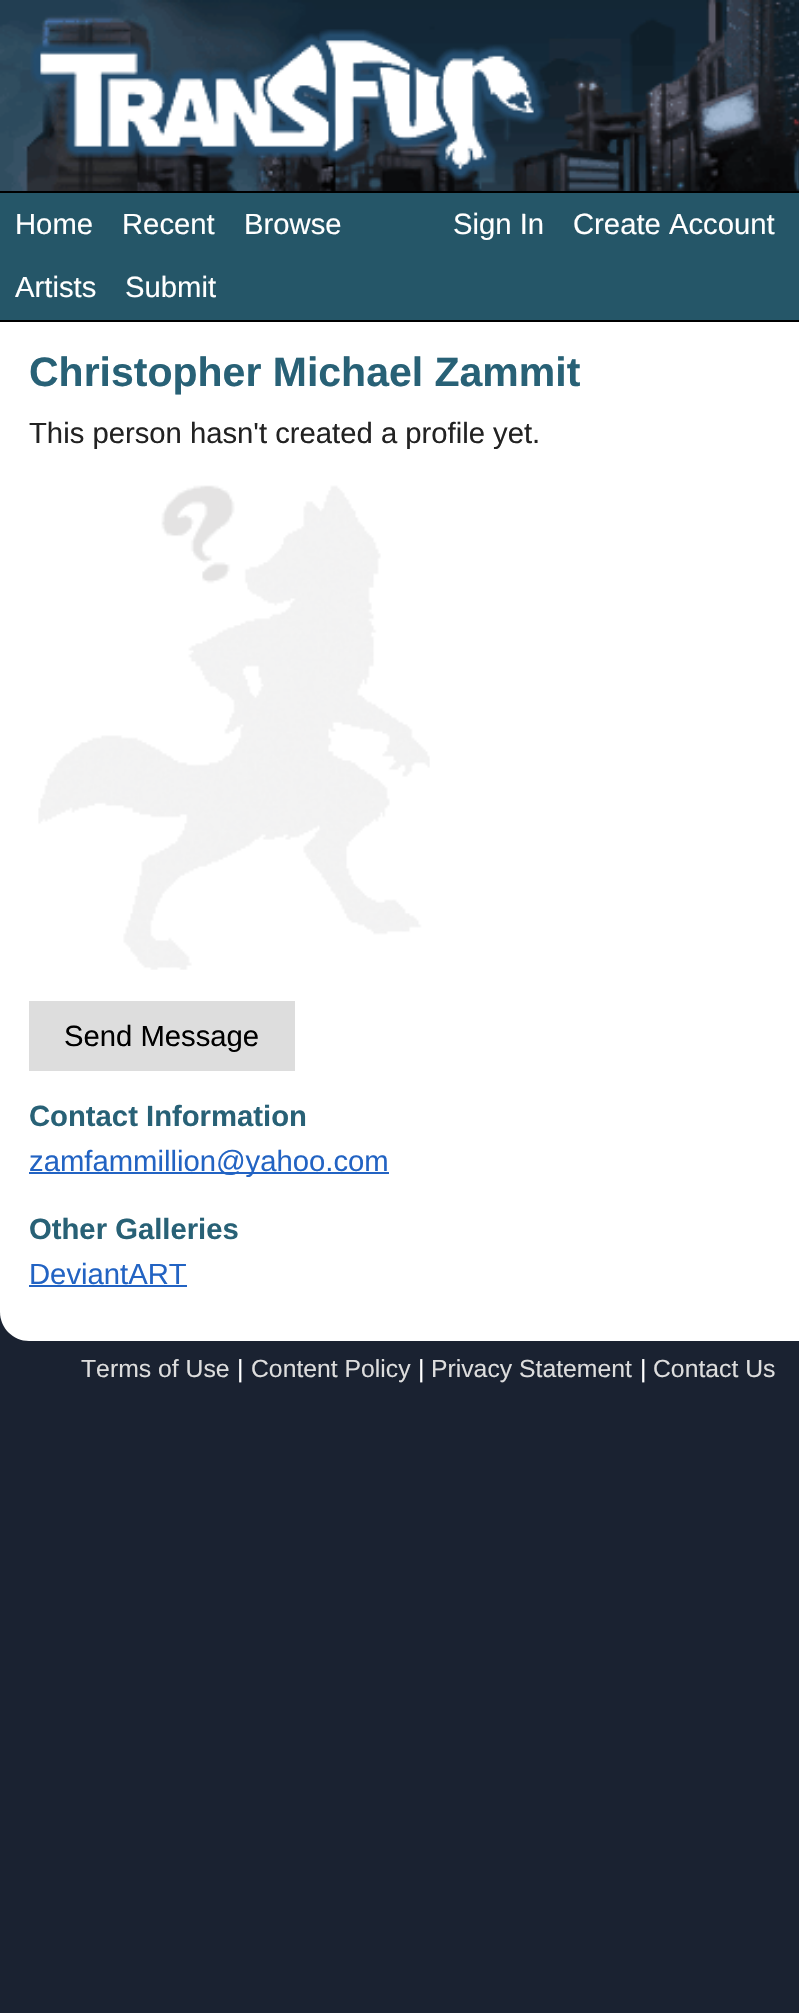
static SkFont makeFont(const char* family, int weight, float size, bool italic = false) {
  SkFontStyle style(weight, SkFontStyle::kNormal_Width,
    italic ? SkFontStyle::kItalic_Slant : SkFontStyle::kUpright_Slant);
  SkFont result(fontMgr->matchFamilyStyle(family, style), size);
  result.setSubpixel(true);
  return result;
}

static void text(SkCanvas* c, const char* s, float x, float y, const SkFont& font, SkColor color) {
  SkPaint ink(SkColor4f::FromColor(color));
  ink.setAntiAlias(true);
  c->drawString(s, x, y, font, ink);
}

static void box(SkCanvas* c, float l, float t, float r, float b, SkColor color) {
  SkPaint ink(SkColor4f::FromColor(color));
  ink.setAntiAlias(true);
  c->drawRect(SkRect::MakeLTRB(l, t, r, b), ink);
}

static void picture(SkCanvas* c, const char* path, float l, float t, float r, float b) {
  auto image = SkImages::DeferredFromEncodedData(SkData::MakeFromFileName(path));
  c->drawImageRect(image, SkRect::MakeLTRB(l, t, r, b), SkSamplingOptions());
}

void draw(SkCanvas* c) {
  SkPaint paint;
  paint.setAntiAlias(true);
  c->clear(0xff1a2231);
  picture(c, "img_01.png", 0, 0, 799, 191);
  picture(c, "img_02.png", 30, 29, 545, 181);
  box(c, 0, 193, 799, 320, 0xff255668);
  box(c, 0, 191, 799, 193, 0xff000000);
  box(c, 0, 320, 799, 322, 0xff000000);
  SkFont face1 = makeFont("Liberation Sans", 400, 29.25f);
  text(c, "Home", 15, 234, face1, 0xffffffff);
  text(c, "Recent", 122, 234, face1, 0xffffffff);
  text(c, "Browse", 244, 234, face1, 0xffffffff);
  text(c, "Artists", 15, 297, face1, 0xffffffff);
  text(c, "Submit", 125, 297, face1, 0xffffffff);
  text(c, "Sign In", 453, 234, face1, 0xffffffff);
  text(c, "Create Account", 573, 234, face1, 0xffffffff);
  paint.setColor(0xffffffff);
  c->drawPath(SkPathBuilder().moveTo(0, 322).lineTo(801, 322).lineTo(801, 1341).lineTo(29, 1341).cubicTo(13, 1341, 0, 1328, 0, 1312).close().detach(), paint);
  SkFont face2 = makeFont("Liberation Sans", 700, 41);
  text(c, "Christopher Michael Zammit", 29, 386, face2, 0xff286176);
  text(c, "This person hasn't created a profile yet.", 29, 443, face1, 0xff222222);
  picture(c, "img_03.png", 38, 485, 430, 970);
  box(c, 29, 1001, 295, 1071, 0xffdddddd);
  text(c, "Send Message", 64, 1046, face1, 0xff000000);
  SkFont face3 = makeFont("Liberation Sans", 700, 29.25f);
  text(c, "Contact Information", 29, 1126, face3, 0xff286176);
  box(c, 29, 1172, 389, 1174, 0xff2263c3);
  text(c, "zamfammillion@yahoo.com", 29, 1171, face1, 0xff2263c3);
  text(c, "Other Galleries", 29, 1239, face3, 0xff286176);
  text(c, "DeviantART", 29, 1284, face1, 0xff2263c3);
  box(c, 29, 1285, 187, 1287, 0xff2263c3);
  SkFont face4 = makeFont("Liberation Sans", 400, 24.75f);
  text(c, "Terms of Use", 81, 1377, face4, 0xffdddddd);
  text(c, "|", 237, 1377, face4, 0xffffffff);
  text(c, "Content Policy", 251, 1377, face4, 0xffdddddd);
  text(c, "|", 418, 1377, face4, 0xffffffff);
  text(c, "Privacy Statement", 431, 1377, face4, 0xffdddddd);
  text(c, "|", 640, 1377, face4, 0xffffffff);
  text(c, "Contact Us", 653, 1377, face4, 0xffdddddd);
}
